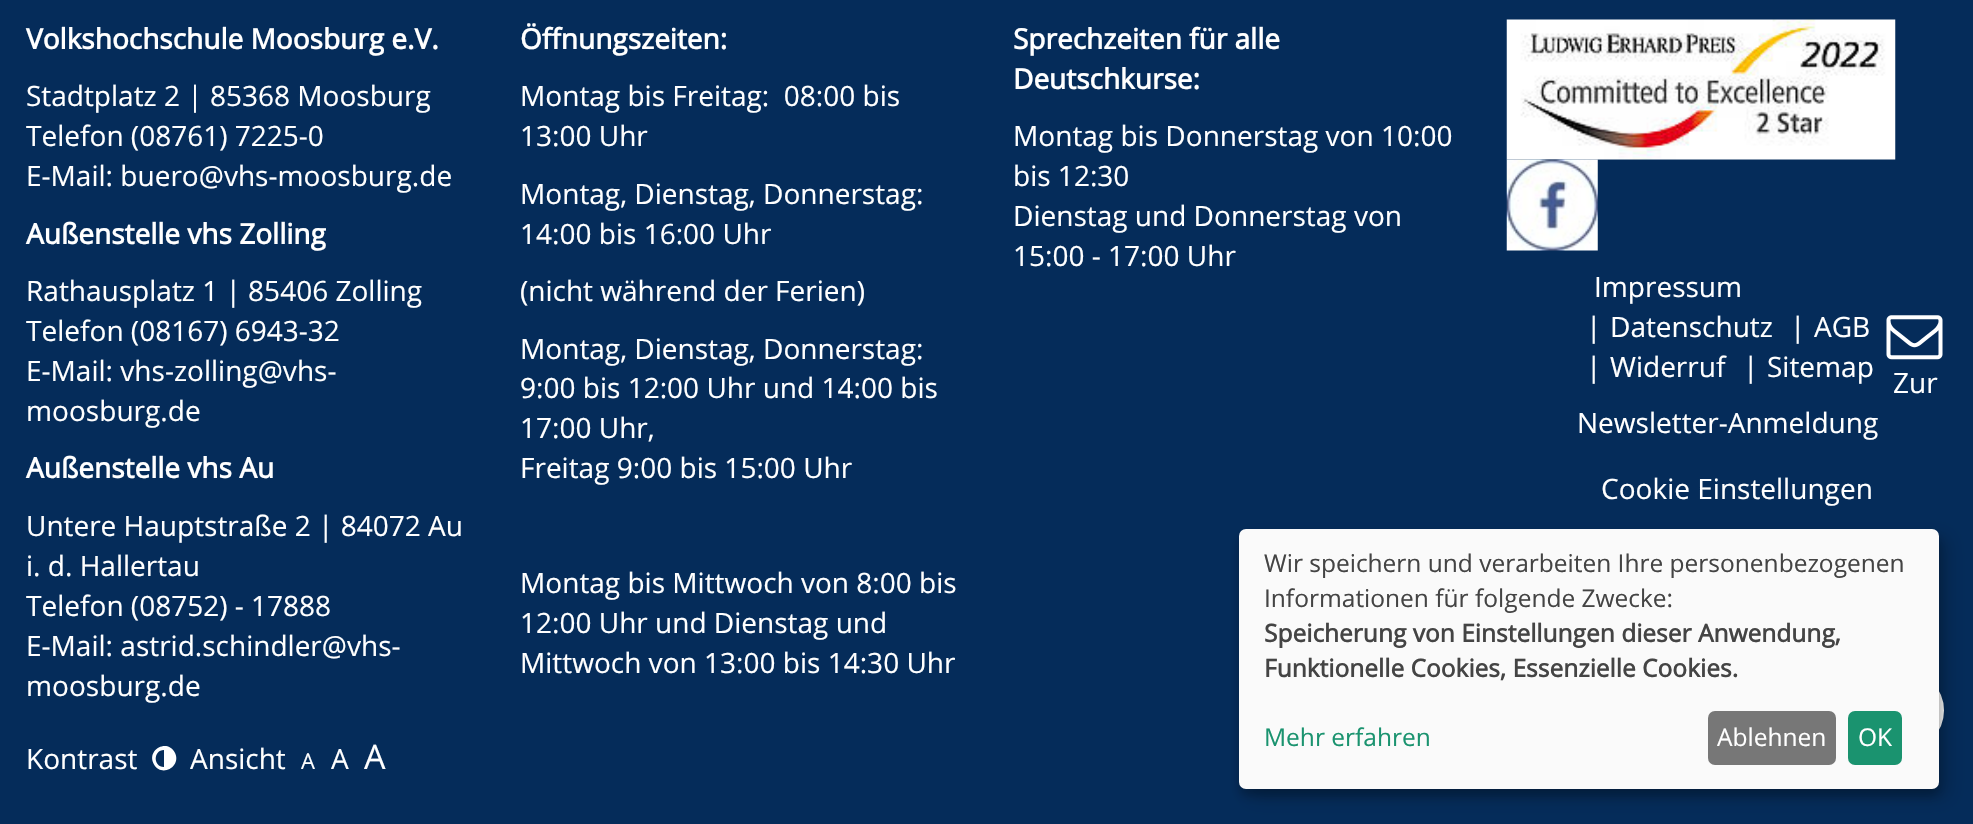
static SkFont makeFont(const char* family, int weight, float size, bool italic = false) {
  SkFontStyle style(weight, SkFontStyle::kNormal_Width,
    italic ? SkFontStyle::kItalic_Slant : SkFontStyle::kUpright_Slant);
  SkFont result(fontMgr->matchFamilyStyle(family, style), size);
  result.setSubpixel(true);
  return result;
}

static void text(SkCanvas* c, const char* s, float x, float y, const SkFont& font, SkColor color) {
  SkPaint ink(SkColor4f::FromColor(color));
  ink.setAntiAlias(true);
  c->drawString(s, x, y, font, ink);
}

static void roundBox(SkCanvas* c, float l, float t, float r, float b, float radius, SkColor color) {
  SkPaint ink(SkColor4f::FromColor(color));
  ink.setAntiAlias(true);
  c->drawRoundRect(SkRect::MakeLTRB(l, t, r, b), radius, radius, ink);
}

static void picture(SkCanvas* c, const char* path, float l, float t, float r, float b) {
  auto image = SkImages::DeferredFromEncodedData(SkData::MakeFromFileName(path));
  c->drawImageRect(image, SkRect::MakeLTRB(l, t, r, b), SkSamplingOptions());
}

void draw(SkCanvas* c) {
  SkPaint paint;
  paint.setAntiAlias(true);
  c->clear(0xff052c5a);
  SkFont face1 = makeFont("Open Sans", 700, 28);
  text(c, "Volkshochschule Moosburg e.V.", 26, 49, face1, 0xffffffff);
  SkFont face2 = makeFont("Open Sans", 400, 28);
  text(c, "Stadtplatz 2 | 85368 Moosburg", 26, 106, face2, 0xffffffff);
  text(c, "Telefon (08761) 7225-0", 26, 146, face2, 0xffffffff);
  text(c, "E-Mail: buero@vhs-moosburg.de", 26, 186, face2, 0xffffffff);
  text(c, "Außenstelle vhs Zolling", 26, 244, face1, 0xffffffff);
  text(c, "Rathausplatz 1 | 85406 Zolling", 26, 301, face2, 0xffffffff);
  text(c, "Telefon (08167) 6943-32", 26, 341, face2, 0xffffffff);
  text(c, "E-Mail: vhs-zolling@vhs-", 26, 381, face2, 0xffffffff);
  text(c, "moosburg.de", 26, 421, face2, 0xffffffff);
  text(c, "Außenstelle vhs Au", 26, 478, face1, 0xffffffff);
  text(c, "Untere Hauptstraße 2 | 84072 Au", 26, 536, face2, 0xffffffff);
  text(c, "i. d. Hallertau", 26, 576, face2, 0xffffffff);
  text(c, "Telefon (08752) - 17888", 26, 616, face2, 0xffffffff);
  text(c, "E-Mail: astrid.schindler@vhs-", 26, 656, face2, 0xffffffff);
  text(c, "moosburg.de", 26, 696, face2, 0xffffffff);
  text(c, "Öffnungszeiten:", 520, 49, face1, 0xffffffff);
  text(c, "Montag bis Freitag:  08:00 bis", 520, 106, face2, 0xffffffff);
  text(c, "13:00 Uhr", 520, 146, face2, 0xffffffff);
  text(c, "Montag, Dienstag, Donnerstag:", 520, 204, face2, 0xffffffff);
  text(c, "14:00 bis 16:00 Uhr", 520, 244, face2, 0xffffffff);
  text(c, "(nicht während der Ferien)", 520, 301, face2, 0xffffffff);
  text(c, "Montag, Dienstag, Donnerstag:", 520, 359, face2, 0xffffffff);
  text(c, "9:00 bis 12:00 Uhr und 14:00 bis", 520, 398, face2, 0xffffffff);
  text(c, "17:00 Uhr,", 520, 438, face2, 0xffffffff);
  text(c, "Freitag 9:00 bis 15:00 Uhr", 520, 478, face2, 0xffffffff);
  text(c, "Montag bis Mittwoch von 8:00 bis", 520, 593, face2, 0xffffffff);
  text(c, "12:00 Uhr und Dienstag und", 520, 633, face2, 0xffffffff);
  text(c, "Mittwoch von 13:00 bis 14:30 Uhr", 520, 673, face2, 0xffffffff);
  text(c, "Sprechzeiten für alle", 1013, 49, face1, 0xffffffff);
  text(c, "Deutschkurse:", 1013, 89, face1, 0xffffffff);
  text(c, "Montag bis Donnerstag von 10:00", 1013, 146, face2, 0xffffffff);
  text(c, "bis 12:30", 1013, 186, face2, 0xffffffff);
  text(c, "Dienstag und Donnerstag von", 1013, 226, face2, 0xffffffff);
  text(c, "15:00 - 17:00 Uhr", 1013, 266, face2, 0xffffffff);
  picture(c, "img_01.png", 1506, 19, 1896, 160);
  picture(c, "img_02.png", 1506, 159, 1598, 251);
  text(c, "Impressum", 1594, 297, face2, 0xffffffff);
  text(c, "|", 1586, 337, face2, 0xffffffff);
  text(c, "Datenschutz", 1610, 337, face2, 0xffffffff);
  text(c, "|", 1790, 337, face2, 0xffffffff);
  text(c, "AGB", 1814, 337, face2, 0xffffffff);
  text(c, "|", 1586, 377, face2, 0xffffffff);
  text(c, "Widerruf", 1610, 377, face2, 0xffffffff);
  text(c, "|", 1743, 377, face2, 0xffffffff);
  text(c, "Sitemap", 1767, 377, face2, 0xffffffff);
  picture(c, "img_03.png", 1886, 315, 1943, 360);
  text(c, "Zur", 1893, 393, face2, 0xffffffff);
  text(c, "Newsletter-Anmeldung", 1577, 433, face2, 0xffffffff);
  text(c, "Cookie Einstellungen", 1601, 499, face2, 0xffffffff);
  text(c, "Kontrast", 26, 769, face2, 0xffffffff);
  paint.setColor(0xffffffff);
  c->drawPath(SkPathBuilder().moveTo(164, 767).lineTo(164, 750).cubicTo(153, 750, 153, 767, 164, 767).close().moveTo(174.5f, 752).cubicTo(182.5f, 766, 162, 778, 154, 764.5f).cubicTo(146, 750.5f, 166.5f, 738.5f, 174.5f, 752).close().detach(), paint);
  text(c, "Ansicht", 190, 769, face2, 0xffffffff);
  SkFont face3 = makeFont("Open Sans", 400, 22);
  text(c, "A", 301, 769, face3, 0xffffffff);
  text(c, "A", 331, 769, face2, 0xffffffff);
  SkFont face4 = makeFont("Open Sans", 400, 34);
  text(c, "A", 364, 769, face4, 0xffffffff);
  c->drawRoundRect(SkRect::MakeLTRB(1862, 669, 1946, 752), 41.5f, 41.5f, paint);
  paint.setStyle(SkPaint::kStroke_Style);
  paint.setStrokeWidth(4);
  paint.setColor(0xff052c5a);
  c->drawRoundRect(SkRect::MakeLTRB(1862, 669, 1946, 752), 41.5f, 41.5f, paint);
  paint.setStyle(SkPaint::kFill_Style);
  paint.setColor(0x30000000);
  paint.setMaskFilter(SkMaskFilter::MakeBlur(kNormal_SkBlurStyle, 9));
  c->drawRoundRect(SkRect::MakeLTRB(1248, 537, 1948, 798), 7, 7, paint);
  paint.setMaskFilter(nullptr);
  paint.setColor(0x33000000);
  paint.setMaskFilter(SkMaskFilter::MakeBlur(kNormal_SkBlurStyle, 5));
  c->drawRoundRect(SkRect::MakeLTRB(1239, 536, 1939, 796), 7, 7, paint);
  paint.setMaskFilter(nullptr);
  roundBox(c, 1239, 529, 1939, 789, 7, 0xfffafafa);
  SkFont face5 = makeFont("Open Sans", 400, 24.5f);
  text(c, "Wir speichern und verarbeiten Ihre personenbezogenen", 1264, 572, face5, 0xff444444);
  text(c, "Informationen für folgende Zwecke:", 1264, 607, face5, 0xff444444);
  SkFont face6 = makeFont("Open Sans", 700, 24.5f);
  text(c, "Speicherung von Einstellungen dieser Anwendung,", 1264, 642, face6, 0xff444444);
  text(c, "Funktionelle Cookies, Essenzielle Cookies.", 1264, 677, face6, 0xff444444);
  text(c, "Mehr erfahren", 1264, 746, face5, 0xff1a936f);
  roundBox(c, 1708, 711, 1836, 765, 7, 0xff777777);
  text(c, "Ablehnen", 1717, 746, face5, 0xffffffff);
  roundBox(c, 1848, 711, 1902, 765, 7, 0xff1a936f);
  text(c, "OK", 1858, 746, face5, 0xffffffff);
}
